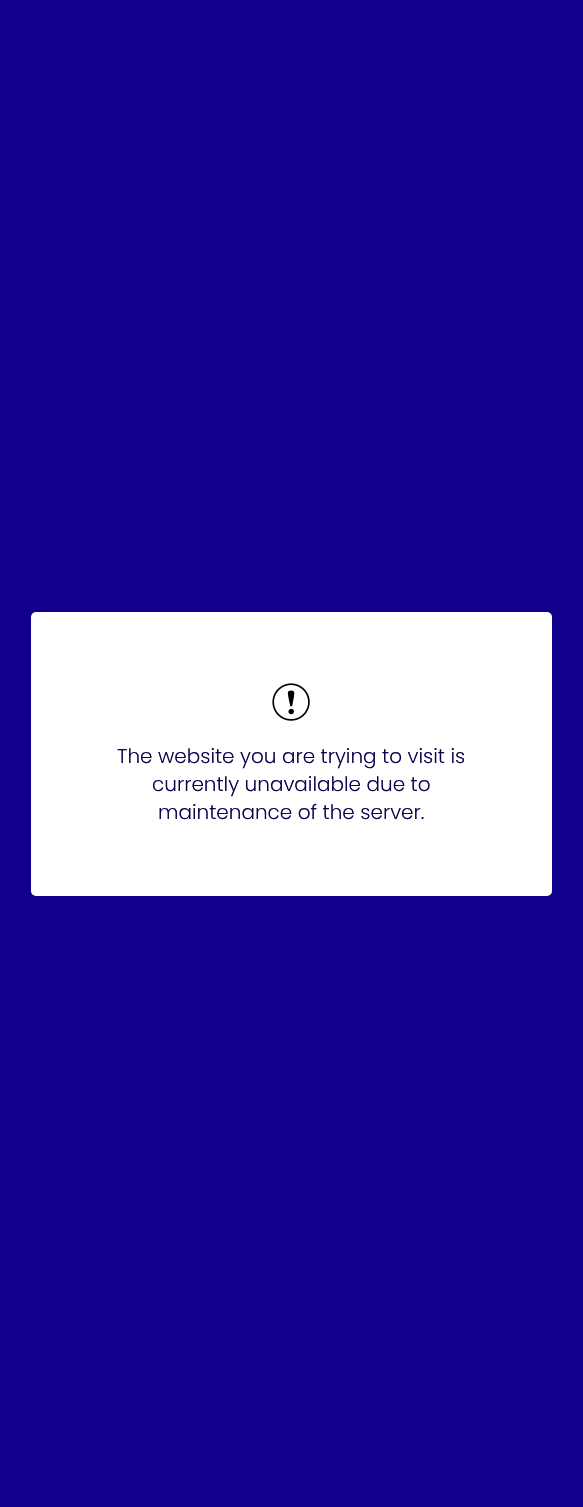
static SkFont makeFont(const char* family, int weight, float size, bool italic = false) {
  SkFontStyle style(weight, SkFontStyle::kNormal_Width,
    italic ? SkFontStyle::kItalic_Slant : SkFontStyle::kUpright_Slant);
  SkFont result(fontMgr->matchFamilyStyle(family, style), size);
  result.setSubpixel(true);
  return result;
}

static void text(SkCanvas* c, const char* s, float x, float y, const SkFont& font, SkColor color) {
  SkPaint ink(SkColor4f::FromColor(color));
  ink.setAntiAlias(true);
  c->drawString(s, x, y, font, ink);
}

static void roundBox(SkCanvas* c, float l, float t, float r, float b, float radius, SkColor color) {
  SkPaint ink(SkColor4f::FromColor(color));
  ink.setAntiAlias(true);
  c->drawRoundRect(SkRect::MakeLTRB(l, t, r, b), radius, radius, ink);
}

static void picture(SkCanvas* c, const char* path, float l, float t, float r, float b) {
  auto image = SkImages::DeferredFromEncodedData(SkData::MakeFromFileName(path));
  c->drawImageRect(image, SkRect::MakeLTRB(l, t, r, b), SkSamplingOptions());
}

void draw(SkCanvas* c) {
  SkPaint paint;
  paint.setAntiAlias(true);
  c->clear(0xff11008b);
  roundBox(c, 31, 612, 552, 896, 5, 0xffffffff);
  picture(c, "img_01.png", 272, 683, 310, 721);
  SkFont face1 = makeFont("Poppins", 300, 20);
  text(c, "The website you are trying to visit is", 117, 763, face1, 0xff11004e);
  text(c, "currently unavailable due to", 152, 791, face1, 0xff11004e);
  text(c, "maintenance of the server.", 158, 819, face1, 0xff11004e);
}
